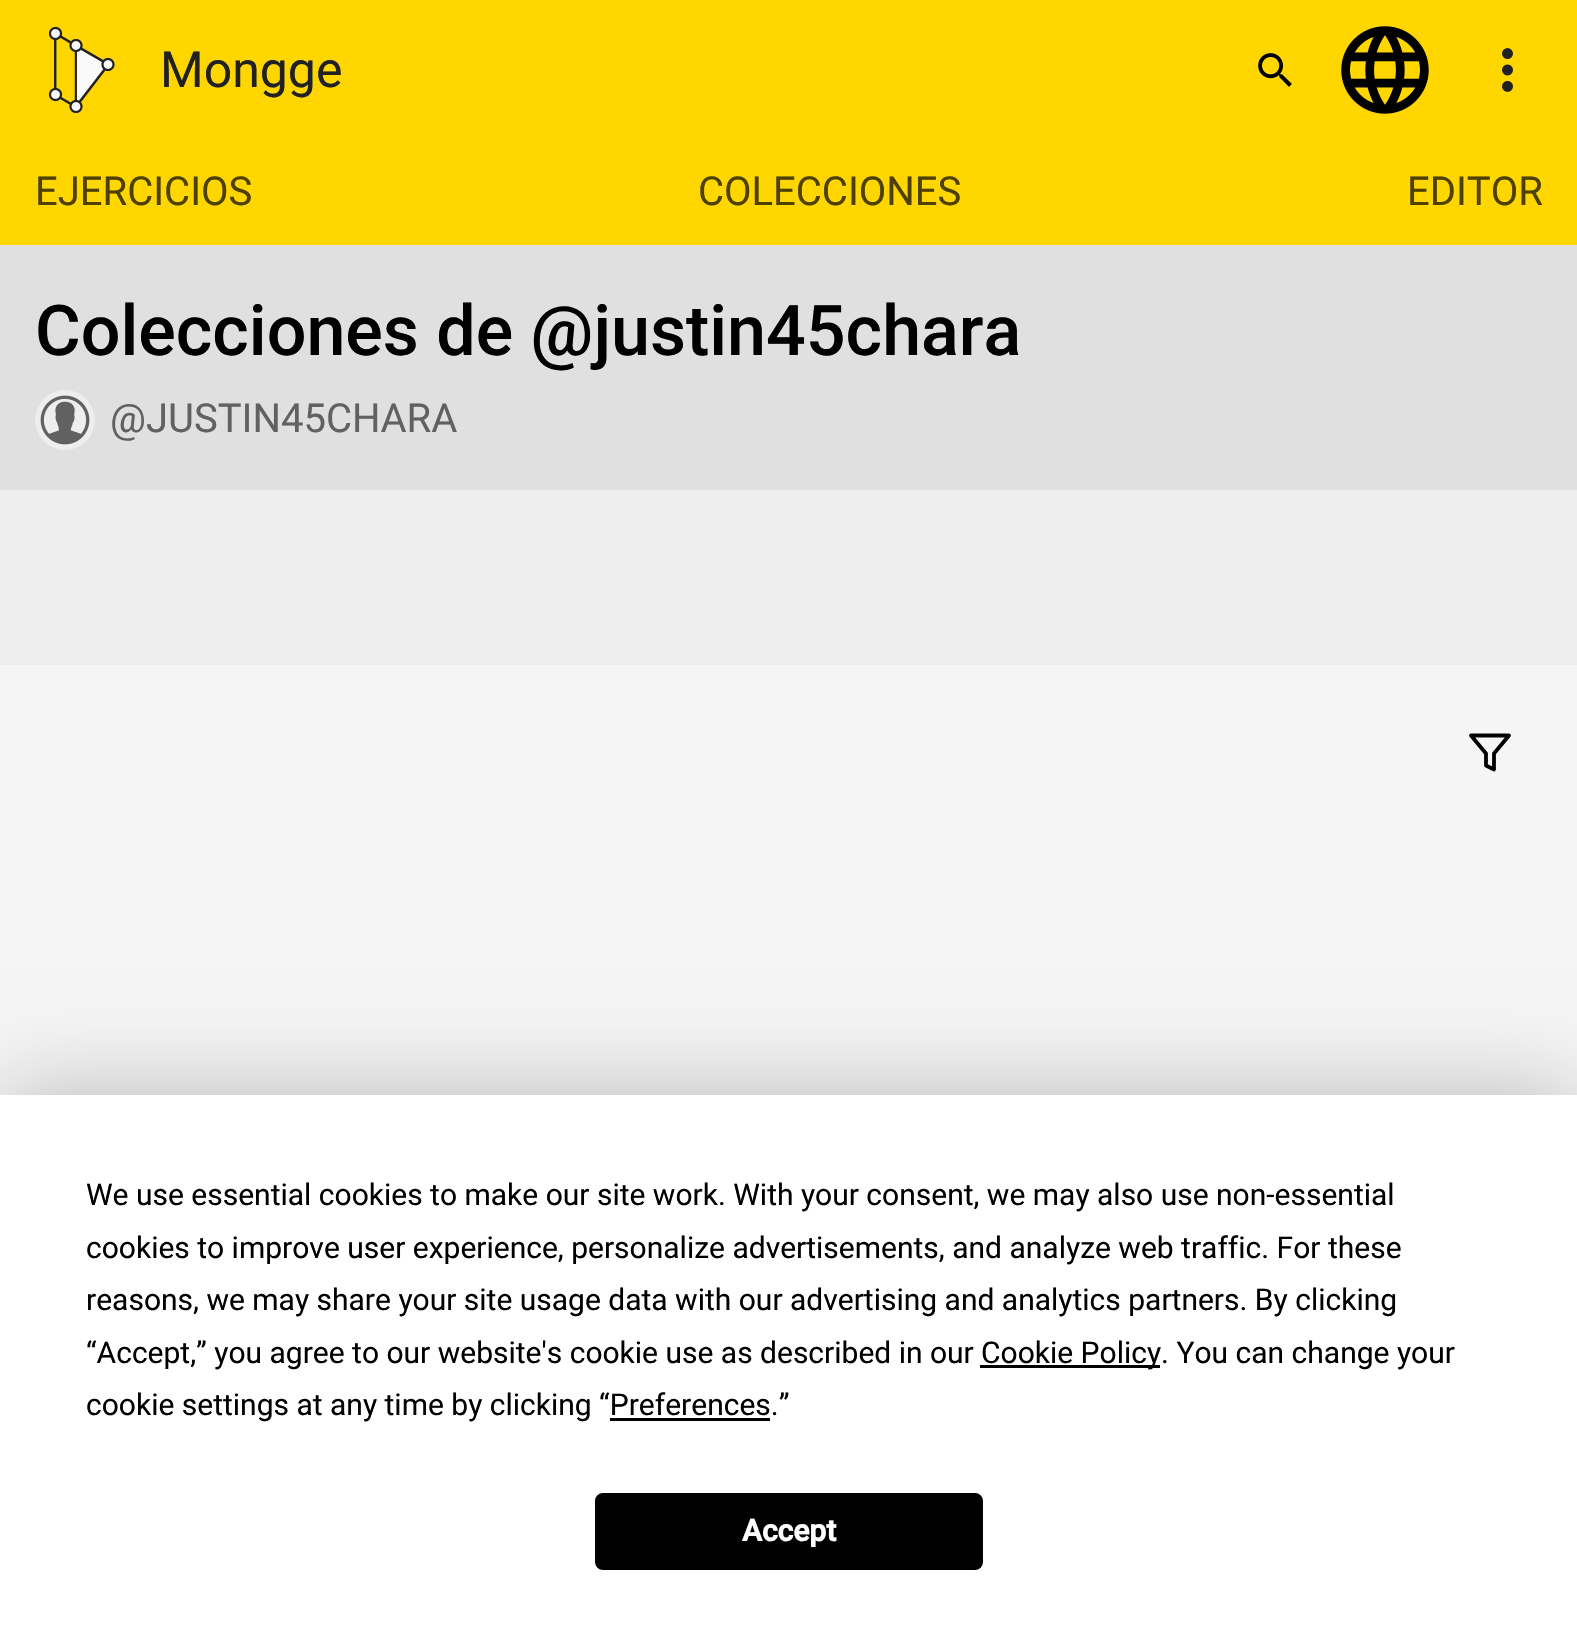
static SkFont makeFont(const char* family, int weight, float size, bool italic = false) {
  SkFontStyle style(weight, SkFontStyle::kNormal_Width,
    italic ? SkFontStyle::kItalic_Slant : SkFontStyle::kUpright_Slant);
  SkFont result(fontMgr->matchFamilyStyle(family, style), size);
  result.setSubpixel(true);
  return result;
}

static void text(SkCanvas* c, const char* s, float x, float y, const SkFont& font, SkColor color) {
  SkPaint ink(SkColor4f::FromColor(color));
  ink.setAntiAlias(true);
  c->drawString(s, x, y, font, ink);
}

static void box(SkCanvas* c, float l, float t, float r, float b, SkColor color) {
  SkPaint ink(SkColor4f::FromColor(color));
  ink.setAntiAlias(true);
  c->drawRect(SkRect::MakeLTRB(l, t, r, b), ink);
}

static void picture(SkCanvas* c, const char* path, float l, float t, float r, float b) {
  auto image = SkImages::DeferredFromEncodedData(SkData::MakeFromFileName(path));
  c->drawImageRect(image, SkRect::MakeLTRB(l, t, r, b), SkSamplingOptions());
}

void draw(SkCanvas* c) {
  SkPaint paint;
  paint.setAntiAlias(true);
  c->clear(0xfff5f5f5);
  box(c, 0, 0, 1577, 245, 0xffffd600);
  picture(c, "img_01.png", 48, 26, 115, 114);
  SkFont face1 = makeFont("Roboto", 400, 50);
  text(c, "Mongge", 160, 87, face1, 0xff212121);
  picture(c, "img_02.png", 1258, 53, 1292, 87);
  picture(c, "img_03.png", 1341, 26, 1429, 114);
  picture(c, "img_04.png", 1502, 48, 1513, 92);
  SkFont face2 = makeFont("Roboto", 400, 40);
  text(c, "EJERCICIOS", 35, 205, face2, 0xff4d4000);
  text(c, "COLECCIONES", 698, 205, face2, 0xff4d4000);
  text(c, "EDITOR", 1407, 205, face2, 0xff4d4000);
  box(c, 0, 245, 1577, 490, 0xffe0e0e0);
  SkFont face3 = makeFont("Roboto", 500, 70);
  text(c, "Colecciones de @justin45chara", 35, 355, face3, 0xff000000);
  paint.setColor(0xffeeeeee);
  c->drawCircle(65, 420, 30, paint);
  picture(c, "img_05.png", 40, 395, 90, 445);
  text(c, "@JUSTIN45CHARA", 110, 432, face2, 0xff616161);
  box(c, 0, 490, 1577, 665, 0xffeeeeee);
  paint.setStyle(SkPaint::kStroke_Style);
  paint.setStrokeWidth(3.8f);
  paint.setStrokeCap(SkPaint::kRound_Cap);
  paint.setStrokeJoin(SkPaint::kRound_Join);
  paint.setColor(0xff000000);
  c->drawPath(SkPathBuilder().moveTo(1509, 735.5f).lineTo(1471, 735.5f).lineTo(1486, 753.5f).lineTo(1486, 765.5f).lineTo(1494, 769.5f).lineTo(1494, 753.5f).close().detach(), paint);
  paint.setStyle(SkPaint::kFill_Style);
  paint.setColor(0x40000000);
  paint.setMaskFilter(SkMaskFilter::MakeBlur(kNormal_SkBlurStyle, 44));
  c->drawRect(SkRect::MakeLTRB(0, 1095, 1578, 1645), paint);
  paint.setMaskFilter(nullptr);
  box(c, 0, 1095, 1577, 1643, 0xffffffff);
  SkFont face4 = makeFont("Roboto", 400, 30);
  text(c, "We use essential cookies to make our site work. With your consent, we may also use non-essential", 86, 1205, face4, 0xff000000);
  text(c, "cookies to improve user experience, personalize advertisements, and analyze web traffic. For these", 86, 1258, face4, 0xff000000);
  text(c, "reasons, we may share your site usage data with our advertising and analytics partners. By clicking", 86, 1310, face4, 0xff000000);
  text(c, "“Accept,” you agree to our website's cookie use as described in our", 86, 1363, face4, 0xff000000);
  box(c, 980, 1365, 1160, 1368, 0xff000000);
  text(c, "Cookie Policy. You can change your", 981, 1363, face4, 0xff000000);
  text(c, "cookie settings at any time by clicking “Preferences.”", 86, 1415, face4, 0xff000000);
  box(c, 610, 1418, 770, 1421, 0xff000000);
  paint.setColor(0xff000000);
  c->drawRoundRect(SkRect::MakeLTRB(596.5f, 1494.5f, 981.5f, 1568.5f), 6.5f, 6.5f, paint);
  paint.setStyle(SkPaint::kStroke_Style);
  paint.setStrokeWidth(3);
  paint.setStrokeCap(SkPaint::kButt_Cap);
  paint.setStrokeJoin(SkPaint::kMiter_Join);
  c->drawRoundRect(SkRect::MakeLTRB(596.5f, 1494.5f, 981.5f, 1568.5f), 6.5f, 6.5f, paint);
  SkFont face5 = makeFont("Roboto", 700, 30);
  text(c, "Accept", 742, 1541, face5, 0xffffffff);
}
